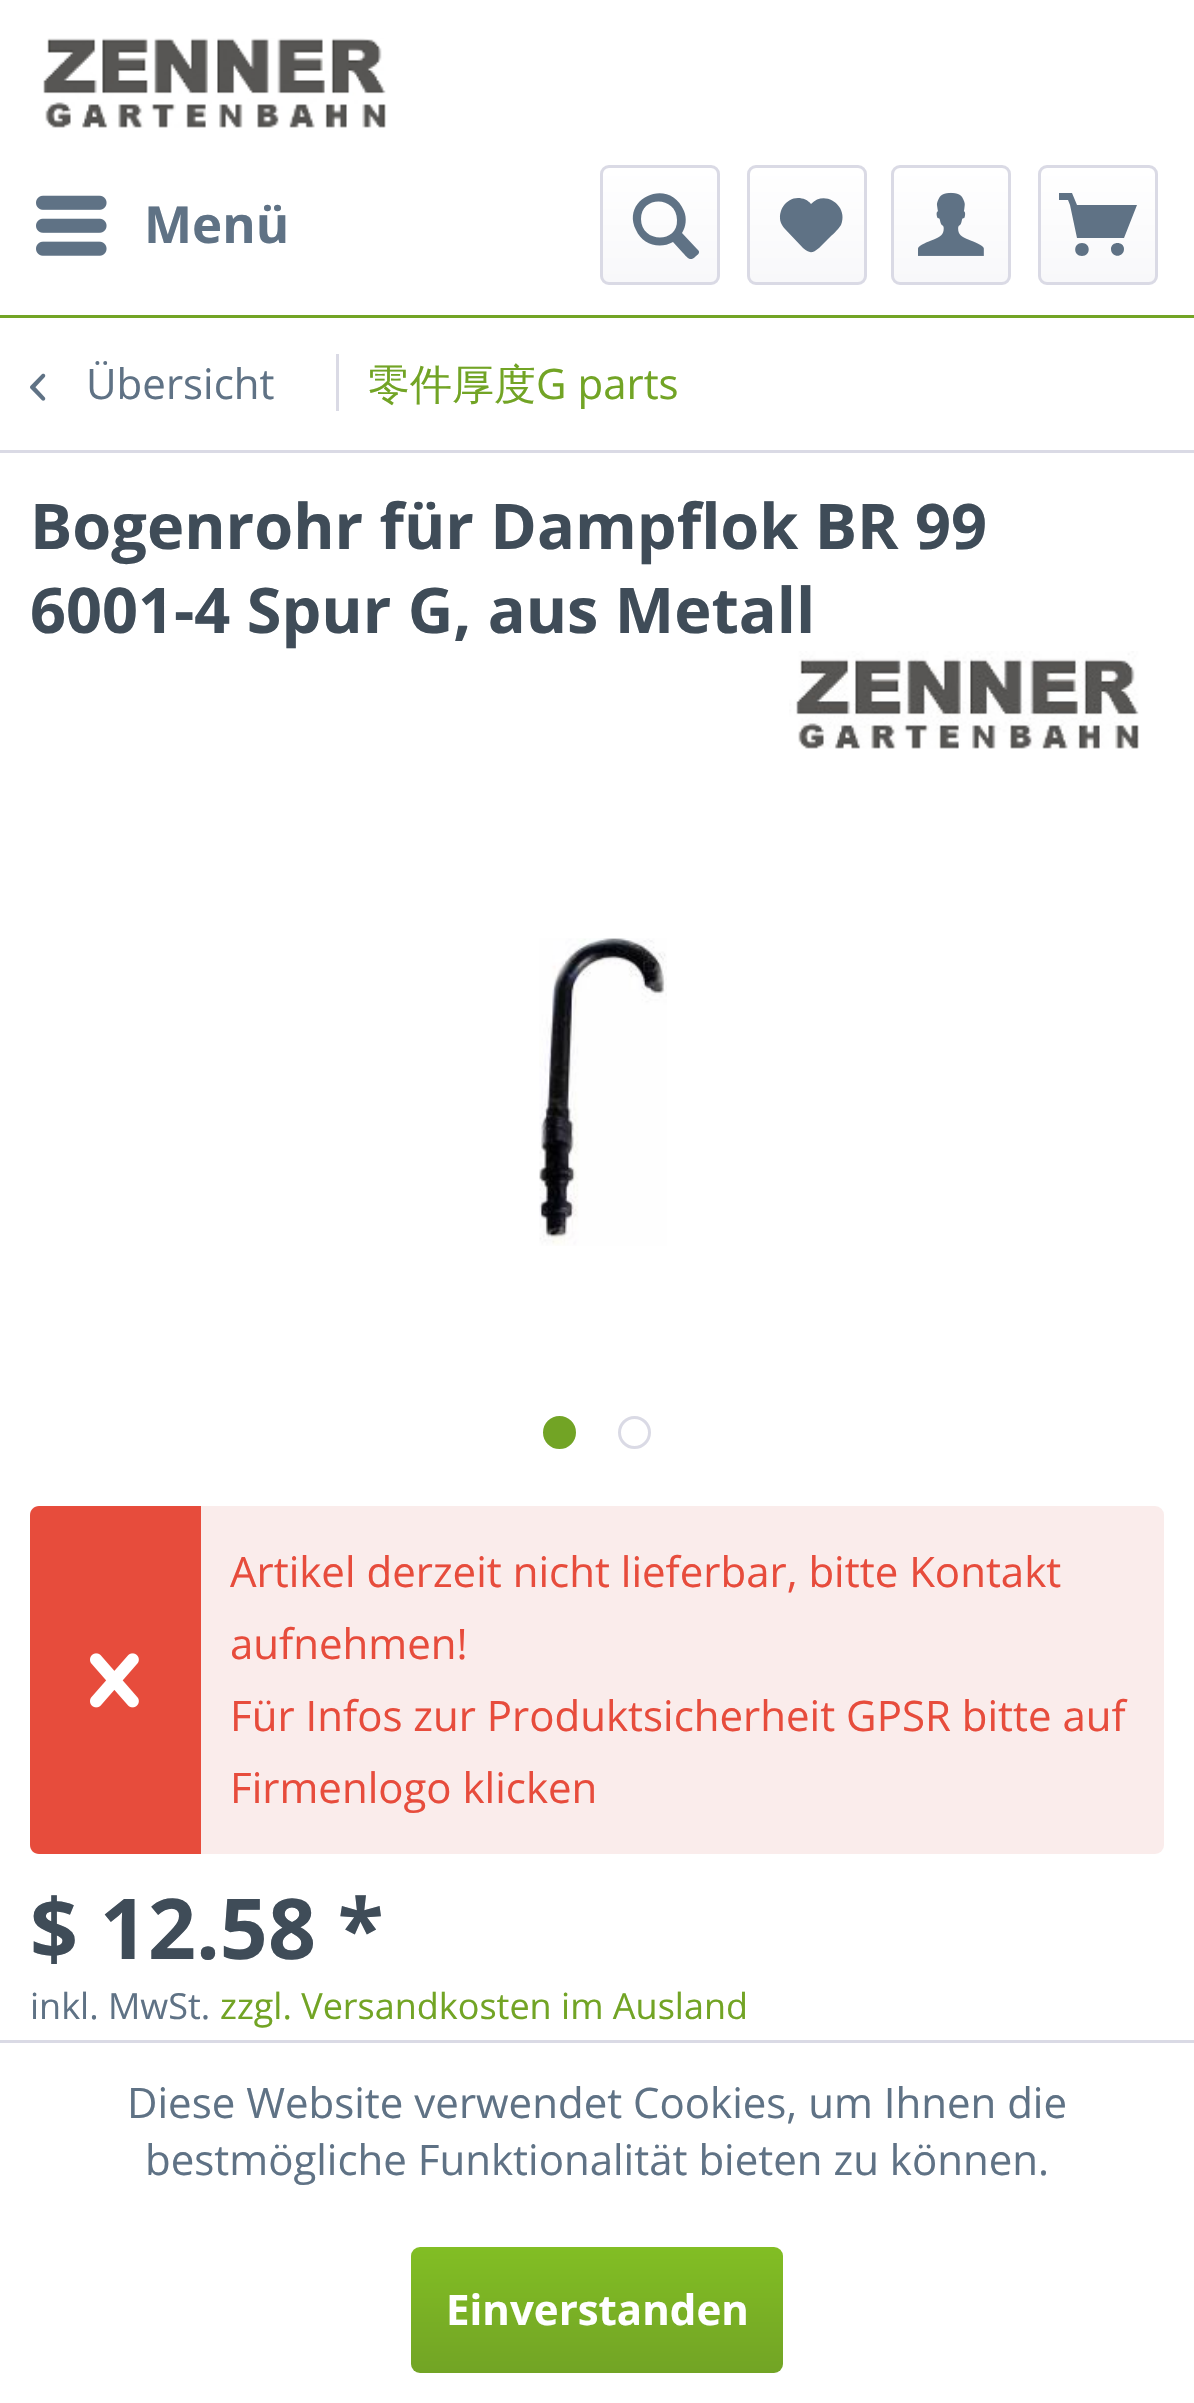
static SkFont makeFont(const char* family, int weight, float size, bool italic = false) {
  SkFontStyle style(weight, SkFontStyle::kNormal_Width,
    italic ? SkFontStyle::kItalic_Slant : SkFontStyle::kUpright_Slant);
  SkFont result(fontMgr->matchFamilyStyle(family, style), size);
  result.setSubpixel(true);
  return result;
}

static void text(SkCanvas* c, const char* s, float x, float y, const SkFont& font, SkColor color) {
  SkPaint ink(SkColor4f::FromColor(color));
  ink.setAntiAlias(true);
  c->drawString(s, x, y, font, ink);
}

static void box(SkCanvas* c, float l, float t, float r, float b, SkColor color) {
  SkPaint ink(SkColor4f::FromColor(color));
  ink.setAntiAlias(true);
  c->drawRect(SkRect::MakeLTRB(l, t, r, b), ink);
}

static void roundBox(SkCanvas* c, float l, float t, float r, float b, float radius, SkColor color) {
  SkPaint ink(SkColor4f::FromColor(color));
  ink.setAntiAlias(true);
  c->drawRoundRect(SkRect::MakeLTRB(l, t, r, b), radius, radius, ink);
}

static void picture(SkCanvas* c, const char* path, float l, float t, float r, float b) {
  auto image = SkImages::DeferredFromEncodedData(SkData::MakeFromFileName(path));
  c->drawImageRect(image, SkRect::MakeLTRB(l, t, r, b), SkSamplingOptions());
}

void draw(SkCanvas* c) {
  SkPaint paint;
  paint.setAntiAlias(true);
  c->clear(0xffffffff);
  box(c, 0, 315, 1194, 318, 0xff72a425);
  picture(c, "img_01.png", 43, 38, 386, 128);
  picture(c, "img_02.png", 36, 195, 107, 256);
  SkFont face1 = makeFont("Open Sans", 700, 51);
  text(c, "Menü", 144, 243, face1, 0xff5f7285);
  {
    const SkColor colors[] = {0xffffffff, 0xfff8f8fa};
    const float stops[] = {0, 1};
    const SkPoint ends[] = {{660, 168}, {660, 282}};
    paint.setShader(SkGradientShader::MakeLinear(ends, colors, stops, 2, SkTileMode::kClamp));
    paint.setAlpha(255);
  }
  c->drawRoundRect(SkRect::MakeLTRB(603, 168, 717, 282), 6, 6, paint);
  paint.setStyle(SkPaint::kStroke_Style);
  paint.setStrokeWidth(3);
  paint.setShader(nullptr);
  paint.setColor(0xffdadae5);
  c->drawRoundRect(SkRect::MakeLTRB(601.5f, 166.5f, 718.5f, 283.5f), 7.5f, 7.5f, paint);
  paint.setStyle(SkPaint::kFill_Style);
  paint.setColor(0xff5f7285);
  c->drawPath(SkPathBuilder().moveTo(697, 249).lineTo(682, 233).cubicTo(686, 227, 687, 218, 684, 211).cubicTo(670, 176, 620, 198, 636, 230).cubicTo(642, 244, 659, 250, 673, 242).lineTo(683, 253).cubicTo(687, 257, 690, 262, 695, 257).cubicTo(697, 255, 701, 253, 698, 250).close().moveTo(641, 219).cubicTo(641, 195, 677, 196, 677, 220).cubicTo(678, 244, 641, 243, 641, 219).close().detach(), paint);
  {
    const SkColor colors[] = {0xffffffff, 0xfff8f8fa};
    const float stops[] = {0, 1};
    const SkPoint ends[] = {{807, 168}, {807, 282}};
    paint.setShader(SkGradientShader::MakeLinear(ends, colors, stops, 2, SkTileMode::kClamp));
    paint.setAlpha(255);
  }
  c->drawRoundRect(SkRect::MakeLTRB(750, 168, 864, 282), 6, 6, paint);
  paint.setStyle(SkPaint::kStroke_Style);
  paint.setShader(nullptr);
  paint.setColor(0xffdadae5);
  c->drawRoundRect(SkRect::MakeLTRB(748.5f, 166.5f, 865.5f, 283.5f), 7.5f, 7.5f, paint);
  paint.setStyle(SkPaint::kFill_Style);
  paint.setColor(0xff5f7285);
  c->drawPath(SkPathBuilder().moveTo(798, 198).cubicTo(786, 198, 777, 211, 781, 223).cubicTo(782, 225, 783, 227, 785, 229).lineTo(803, 248).cubicTo(809, 253, 812, 254, 819, 248).lineTo(828, 239).cubicTo(832, 235, 838, 230, 841, 225).cubicTo(849, 206, 825, 189, 811, 204).cubicTo(808, 200, 803, 198, 798, 198).close().detach(), paint);
  {
    const SkColor colors[] = {0xffffffff, 0xfff8f8fa};
    const float stops[] = {0, 1};
    const SkPoint ends[] = {{951, 168}, {951, 282}};
    paint.setShader(SkGradientShader::MakeLinear(ends, colors, stops, 2, SkTileMode::kClamp));
    paint.setAlpha(255);
  }
  c->drawRoundRect(SkRect::MakeLTRB(894, 168, 1008, 282), 6, 6, paint);
  paint.setStyle(SkPaint::kStroke_Style);
  paint.setShader(nullptr);
  paint.setColor(0xffdadae5);
  c->drawRoundRect(SkRect::MakeLTRB(892.5f, 166.5f, 1009.5f, 283.5f), 7.5f, 7.5f, paint);
  picture(c, "img_03.png", 918, 192, 984, 256);
  paint.setStyle(SkPaint::kFill_Style);
  {
    const SkColor colors[] = {0xffffffff, 0xfff8f8fa};
    const float stops[] = {0, 1};
    const SkPoint ends[] = {{1098, 168}, {1098, 282}};
    paint.setShader(SkGradientShader::MakeLinear(ends, colors, stops, 2, SkTileMode::kClamp));
    paint.setAlpha(255);
  }
  c->drawRoundRect(SkRect::MakeLTRB(1041, 168, 1155, 282), 6, 6, paint);
  paint.setStyle(SkPaint::kStroke_Style);
  paint.setShader(nullptr);
  paint.setColor(0xffdadae5);
  c->drawRoundRect(SkRect::MakeLTRB(1039.5f, 166.5f, 1156.5f, 283.5f), 7.5f, 7.5f, paint);
  paint.setStyle(SkPaint::kFill_Style);
  paint.setColor(0xff5f7285);
  c->drawPath(SkPathBuilder().moveTo(1077, 238).lineTo(1124, 238).lineTo(1137, 205).lineTo(1077, 205).lineTo(1072, 193).lineTo(1059, 193).lineTo(1059, 200).lineTo(1068, 200).lineTo(1070, 205).close().moveTo(1082, 243).cubicTo(1073, 243, 1073, 256, 1082, 256).cubicTo(1091, 256, 1091, 243, 1082, 243).close().moveTo(1124, 249).cubicTo(1124, 258, 1111, 258, 1111, 249).cubicTo(1111, 241, 1124, 241, 1124, 249).close().detach(), paint);
  box(c, 0, 450, 1194, 453, 0xffdadae5);
  picture(c, "img_04.png", 30, 373, 46, 401);
  SkFont face2 = makeFont("Open Sans", 400, 42);
  text(c, "Übersicht", 86, 399, face2, 0xff5f7285);
  box(c, 336, 354, 339, 411, 0xffdadae5);
  SkFont face3 = makeFont("WenQuanYi Zen Hei", 500, 42);
  text(c, "零件厚度", 368, 399, face3, 0xff72a425);
  text(c, "G parts", 536, 399, face2, 0xff72a425);
  SkFont face4 = makeFont("Open Sans", 700, 63);
  text(c, "Bogenrohr für Dampflok BR 99", 30, 549, face4, 0xff3f4c58);
  text(c, "6001-4 Spur G, aus Metall", 30, 633, face4, 0xff3f4c58);
  picture(c, "img_05.png", 789, 651, 1139, 749);
  picture(c, "img_06.png", 539, 938, 667, 1246);
  paint.setColor(0xff72a425);
  c->drawCircle(559.5f, 1432.5f, 15, paint);
  paint.setStyle(SkPaint::kStroke_Style);
  c->drawCircle(559.5f, 1432.5f, 15, paint);
  paint.setColor(0xffdadae5);
  c->drawCircle(634.5f, 1432.5f, 15, paint);
  roundBox(c, 30, 1506, 1164, 1854, 9, 0xfffaeceb);
  paint.setStyle(SkPaint::kFill_Style);
  paint.setColor(0xffe74c3c);
  c->drawPath(SkPathBuilder().moveTo(39, 1506).lineTo(201, 1506).lineTo(201, 1854).lineTo(39, 1854).cubicTo(34, 1854, 30, 1850, 30, 1845).lineTo(30, 1515).cubicTo(30, 1510, 34, 1506, 39, 1506).close().detach(), paint);
  picture(c, "img_07.png", 90, 1653, 139, 1708);
  text(c, "Artikel derzeit nicht lieferbar, bitte Kontakt", 230, 1587, face2, 0xffe74c3c);
  text(c, "aufnehmen!", 230, 1659, face2, 0xffe74c3c);
  text(c, "Für Infos zur Produktsicherheit GPSR bitte auf", 230, 1731, face2, 0xffe74c3c);
  text(c, "Firmenlogo klicken", 230, 1803, face2, 0xffe74c3c);
  SkFont face5 = makeFont("Open Sans", 700, 84);
  text(c, "$ 12.58 *", 30, 1959, face5, 0xff3f4c58);
  SkFont face6 = makeFont("Open Sans", 400, 36);
  text(c, "inkl. MwSt.", 30, 2019, face6, 0xff5f7285);
  text(c, "zzgl. Versandkosten im Ausland", 220, 2019, face6, 0xff72a425);
  box(c, 0, 2040, 1194, 2043, 0xffdadae5);
  text(c, "Diese Website verwendet Cookies, um Ihnen die", 127, 2118, face2, 0xff5f7285);
  text(c, "bestmögliche Funktionalität bieten zu können.", 145, 2175, face2, 0xff5f7285);
  {
    const SkColor colors[] = {0xff82be24, 0xff72a425};
    const float stops[] = {0, 1};
    const SkPoint ends[] = {{597, 2247}, {597, 2373}};
    paint.setShader(SkGradientShader::MakeLinear(ends, colors, stops, 2, SkTileMode::kClamp));
    paint.setAlpha(255);
  }
  c->drawRoundRect(SkRect::MakeLTRB(411, 2247, 783, 2373), 9, 9, paint);
  SkFont face7 = makeFont("Open Sans", 700, 42);
  text(c, "Einverstanden", 446, 2325, face7, 0xffffffff);
}
